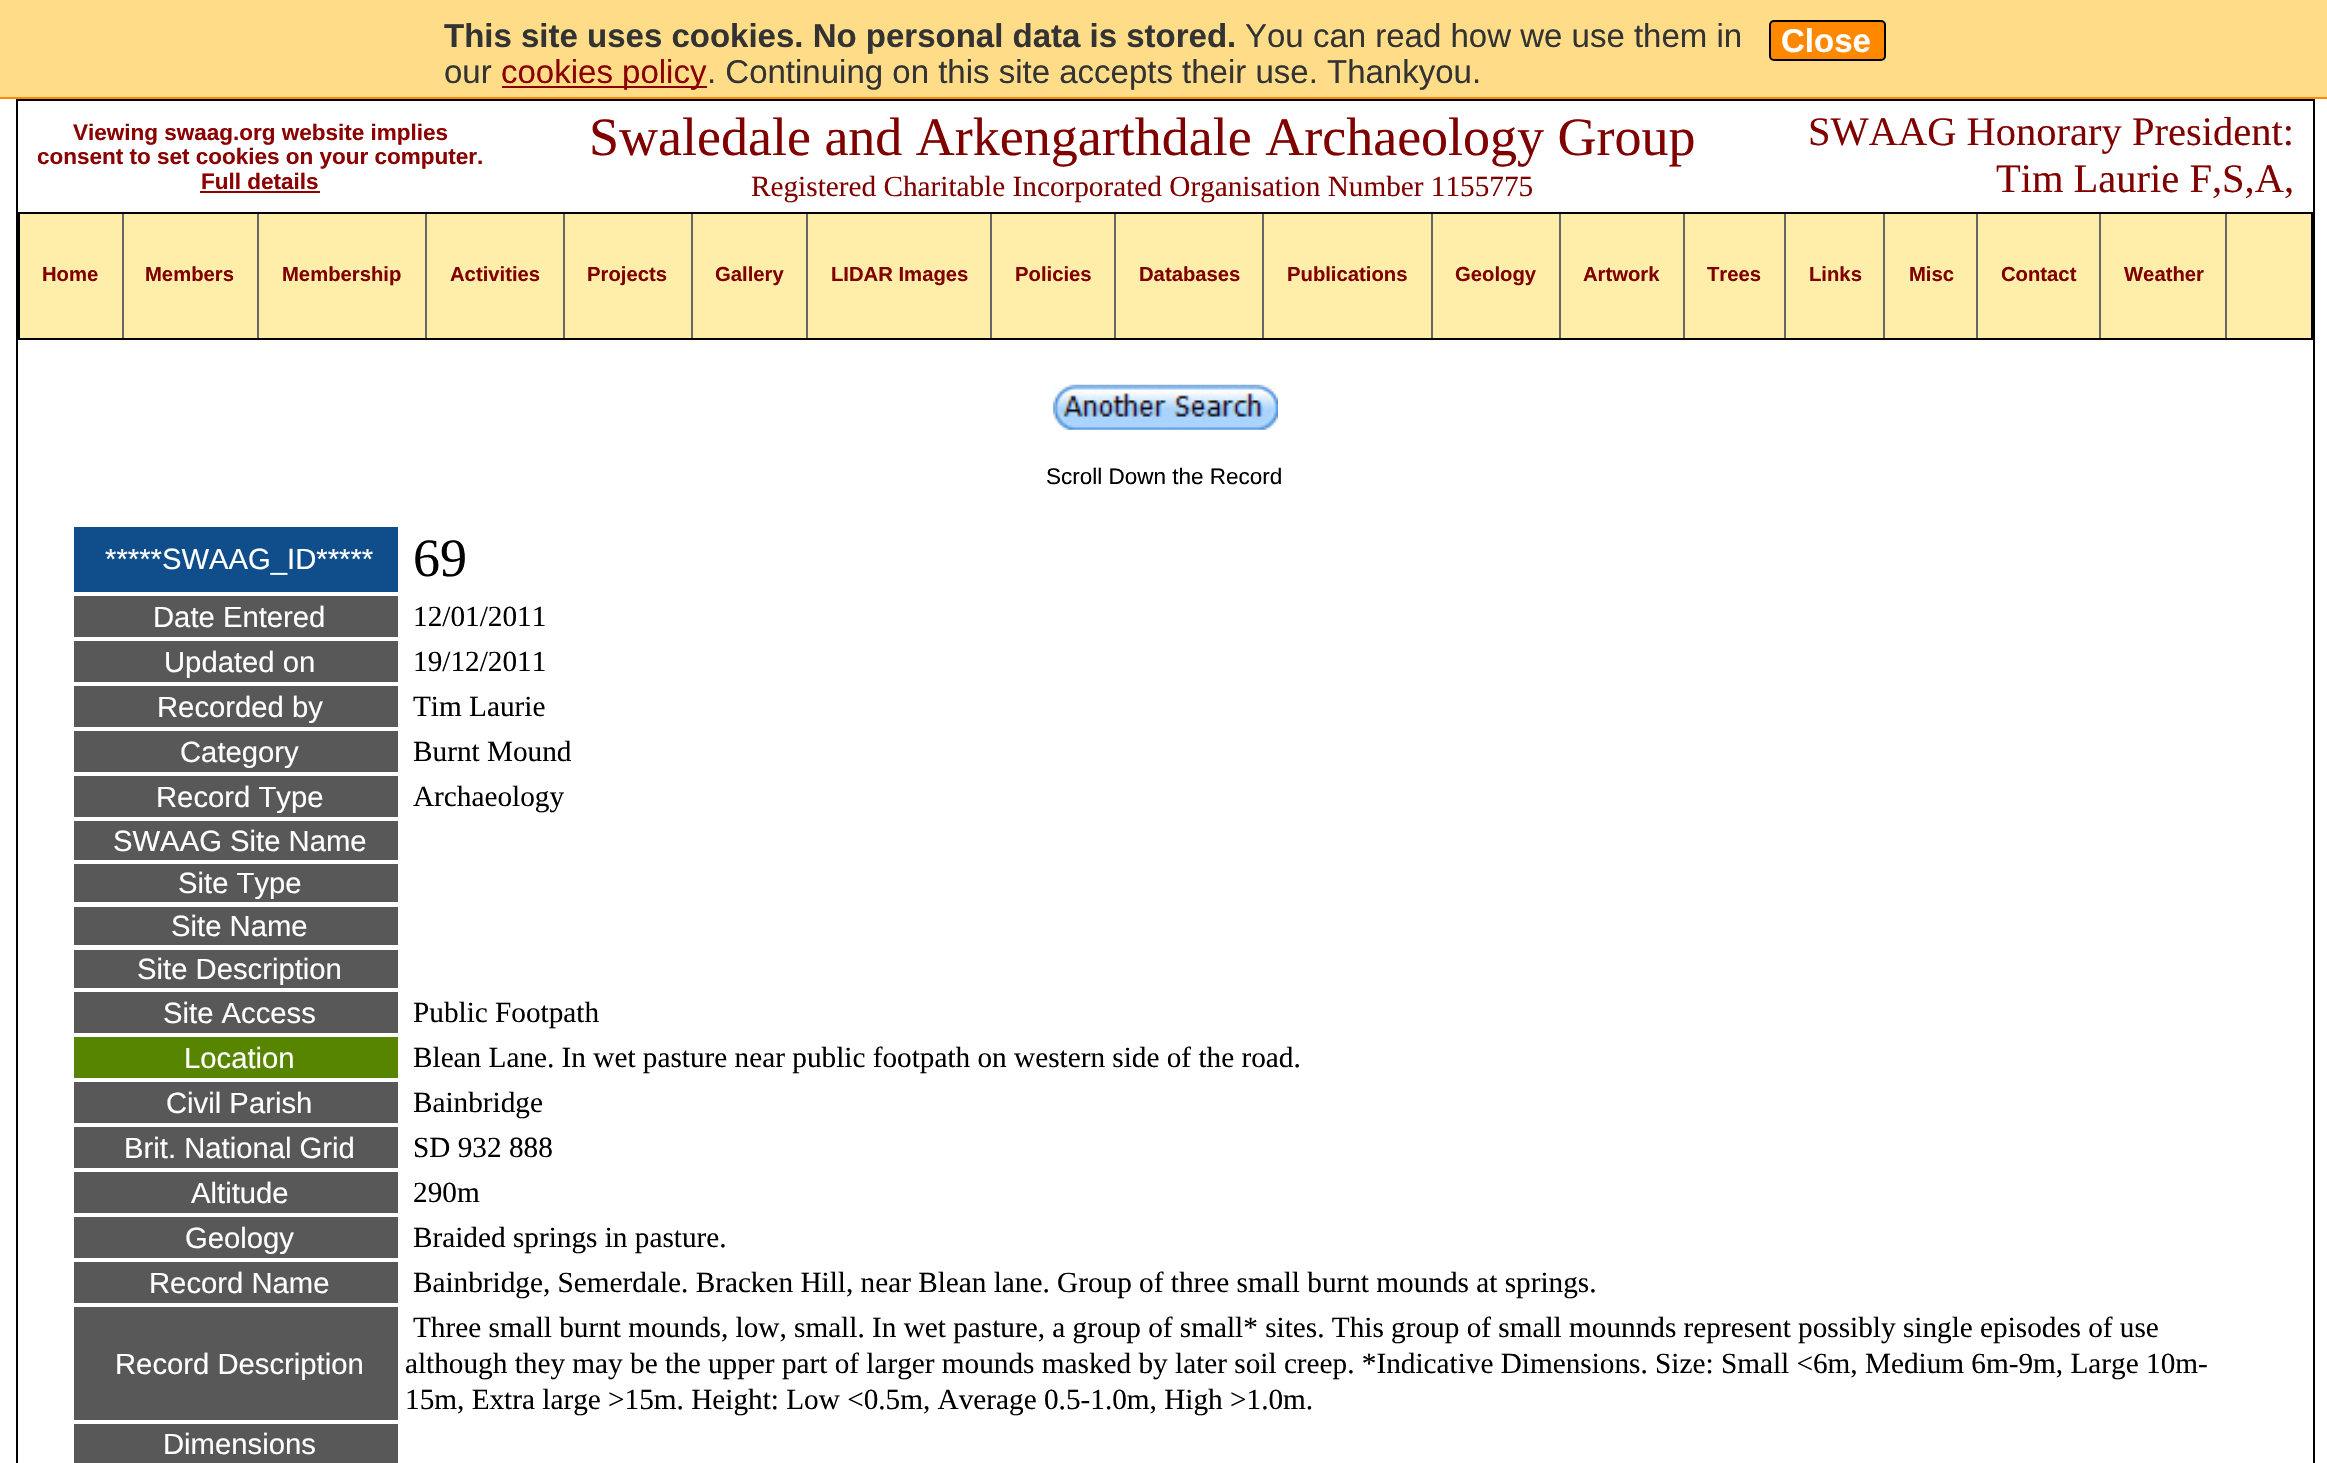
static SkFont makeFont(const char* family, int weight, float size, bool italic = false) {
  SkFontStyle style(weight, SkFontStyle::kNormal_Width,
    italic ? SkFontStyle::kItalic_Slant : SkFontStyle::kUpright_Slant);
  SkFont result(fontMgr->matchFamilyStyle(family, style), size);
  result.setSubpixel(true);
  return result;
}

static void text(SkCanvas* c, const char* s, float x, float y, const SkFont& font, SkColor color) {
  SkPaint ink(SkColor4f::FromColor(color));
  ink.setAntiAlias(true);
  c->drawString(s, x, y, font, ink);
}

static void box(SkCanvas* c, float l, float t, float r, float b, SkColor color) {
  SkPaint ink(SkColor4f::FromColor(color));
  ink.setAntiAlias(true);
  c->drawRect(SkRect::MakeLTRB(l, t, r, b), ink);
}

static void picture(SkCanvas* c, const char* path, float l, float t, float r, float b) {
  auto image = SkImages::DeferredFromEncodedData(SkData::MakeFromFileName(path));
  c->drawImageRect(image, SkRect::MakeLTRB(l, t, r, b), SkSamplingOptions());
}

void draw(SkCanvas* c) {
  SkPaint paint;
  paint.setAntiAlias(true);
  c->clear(0xffffffff);
  box(c, 0, 0, 2327, 97, 0xffffdd88);
  box(c, 0, 97, 2327, 99, 0xffff8800);
  SkFont face1 = makeFont("Liberation Sans", 700, 33);
  text(c, "This site uses cookies. No personal data is stored.", 444, 47, face1, 0xff333333);
  SkFont face2 = makeFont("Liberation Sans", 400, 33);
  text(c, "You can read how we use them in", 1245, 47, face2, 0xff333333);
  text(c, "our", 444, 83, face2, 0xff333333);
  box(c, 502, 86, 707, 88, 0xff8b0000);
  text(c, "cookies policy", 501, 83, face2, 0xff8b0000);
  text(c, ". Continuing on this site accepts their use. Thankyou.", 707, 83, face2, 0xff333333);
  paint.setColor(0xffff8800);
  c->drawRoundRect(SkRect::MakeLTRB(1770, 21, 1885, 60), 4, 4, paint);
  paint.setStyle(SkPaint::kStroke_Style);
  paint.setStrokeWidth(2);
  paint.setColor(0xff000000);
  c->drawRoundRect(SkRect::MakeLTRB(1770, 21, 1885, 60), 4, 4, paint);
  text(c, "Close", 1781, 52, face1, 0xffffffff);
  c->drawRect(SkRect::MakeLTRB(17, 100, 2314, 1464), paint);
  SkFont face3 = makeFont("Liberation Sans", 700, 22.5f);
  text(c, "Viewing swaag.org website implies", 73, 140, face3, 0xff8b0000);
  text(c, "consent to set cookies on your computer.", 37, 164, face3, 0xff8b0000);
  text(c, "Full details", 201, 189, face3, 0xff8b0000);
  box(c, 200, 191, 320, 193, 0xff8b0000);
  SkFont face4 = makeFont("Liberation Serif", 400, 54);
  text(c, "Swaledale and Arkengarthdale Archaeology Group", 589, 155, face4, 0xff800000);
  SkFont face5 = makeFont("Liberation Serif", 400, 29.25f);
  text(c, "Registered Charitable Incorporated Organisation Number 1155775", 751, 196, face5, 0xff800000);
  SkFont face6 = makeFont("Liberation Serif", 400, 40.5f);
  text(c, "SWAAG Honorary President:", 1808, 145, face6, 0xff800000);
  text(c, "Tim Laurie F,S,A,", 1996, 192, face6, 0xff800000);
  paint.setStyle(SkPaint::kFill_Style);
  paint.setColor(0xffffeeaa);
  c->drawRect(SkRect::MakeLTRB(19, 213, 2312, 339), paint);
  paint.setStyle(SkPaint::kStroke_Style);
  paint.setColor(0xff000000);
  c->drawRect(SkRect::MakeLTRB(19, 213, 2312, 339), paint);
  box(c, 122, 214, 124, 338, 0xff666666);
  SkFont face7 = makeFont("Liberation Sans", 700, 20.25f);
  text(c, "Home", 42, 281, face7, 0xff800000);
  box(c, 257, 214, 259, 338, 0xff666666);
  text(c, "Members", 145, 281, face7, 0xff800000);
  box(c, 425, 214, 427, 338, 0xff666666);
  text(c, "Membership", 282, 281, face7, 0xff800000);
  box(c, 563, 214, 565, 338, 0xff666666);
  text(c, "Activities", 450, 281, face7, 0xff800000);
  box(c, 691, 214, 693, 338, 0xff666666);
  text(c, "Projects", 587, 281, face7, 0xff800000);
  box(c, 806, 214, 808, 338, 0xff666666);
  text(c, "Gallery", 715, 281, face7, 0xff800000);
  box(c, 990, 214, 992, 338, 0xff666666);
  text(c, "LIDAR Images", 831, 281, face7, 0xff800000);
  box(c, 1114, 214, 1116, 338, 0xff666666);
  text(c, "Policies", 1015, 281, face7, 0xff800000);
  box(c, 1262, 214, 1264, 338, 0xff666666);
  text(c, "Databases", 1139, 281, face7, 0xff800000);
  box(c, 1431, 214, 1433, 338, 0xff666666);
  text(c, "Publications", 1287, 281, face7, 0xff800000);
  box(c, 1559, 214, 1561, 338, 0xff666666);
  text(c, "Geology", 1455, 281, face7, 0xff800000);
  box(c, 1683, 214, 1685, 338, 0xff666666);
  text(c, "Artwork", 1583, 281, face7, 0xff800000);
  box(c, 1784, 214, 1786, 338, 0xff666666);
  text(c, "Trees", 1707, 281, face7, 0xff800000);
  box(c, 1883, 214, 1885, 338, 0xff666666);
  text(c, "Links", 1809, 281, face7, 0xff800000);
  box(c, 1976, 214, 1978, 338, 0xff666666);
  text(c, "Misc", 1909, 281, face7, 0xff800000);
  box(c, 2099, 214, 2101, 338, 0xff666666);
  text(c, "Contact", 2001, 281, face7, 0xff800000);
  box(c, 2225, 214, 2227, 338, 0xff666666);
  text(c, "Weather", 2124, 281, face7, 0xff800000);
  picture(c, "img_01.png", 1053, 384, 1278, 430);
  SkFont face8 = makeFont("Liberation Sans", 400, 22.5f);
  text(c, "Scroll Down the Record", 1046, 484, face8, 0xff000000);
  box(c, 74, 527, 398, 592, 0xff104e8b);
  SkFont face9 = makeFont("Liberation Sans", 400, 29.25f);
  text(c, "*****SWAAG_ID*****", 105, 569, face9, 0xffffffff);
  text(c, "69", 413, 576, face4, 0xff000000);
  box(c, 74, 596, 398, 637, 0xff585858);
  text(c, "Date Entered", 153, 627, face9, 0xffffffff);
  text(c, "12/01/2011", 413, 626, face5, 0xff000000);
  box(c, 74, 641, 398, 682, 0xff585858);
  text(c, "Updated on", 164, 672, face9, 0xffffffff);
  text(c, "19/12/2011", 413, 671, face5, 0xff000000);
  box(c, 74, 686, 398, 727, 0xff585858);
  text(c, "Recorded by", 157, 717, face9, 0xffffffff);
  text(c, "Tim Laurie", 413, 716, face5, 0xff000000);
  box(c, 74, 731, 398, 772, 0xff585858);
  text(c, "Category", 180, 762, face9, 0xffffffff);
  text(c, "Burnt Mound", 413, 761, face5, 0xff000000);
  box(c, 74, 776, 398, 817, 0xff585858);
  text(c, "Record Type", 156, 807, face9, 0xffffffff);
  text(c, "Archaeology", 413, 806, face5, 0xff000000);
  box(c, 74, 821, 398, 860, 0xff585858);
  text(c, "SWAAG Site Name", 113, 851, face9, 0xffffffff);
  box(c, 74, 864, 398, 902, 0xff585858);
  text(c, "Site Type", 178, 893, face9, 0xffffffff);
  box(c, 74, 907, 398, 945, 0xff585858);
  text(c, "Site Name", 171, 936, face9, 0xffffffff);
  box(c, 74, 950, 398, 988, 0xff585858);
  text(c, "Site Description", 137, 979, face9, 0xffffffff);
  box(c, 74, 992, 398, 1033, 0xff585858);
  text(c, "Site Access", 163, 1023, face9, 0xffffffff);
  text(c, "Public Footpath", 413, 1022, face5, 0xff000000);
  box(c, 74, 1037, 398, 1078, 0xff588500);
  text(c, "Location", 184, 1068, face9, 0xffffffff);
  text(c, "Blean Lane. In wet pasture near public footpath on western side of the road.", 413, 1067, face5, 0xff000000);
  box(c, 74, 1082, 398, 1123, 0xff585858);
  text(c, "Civil Parish", 166, 1113, face9, 0xffffffff);
  text(c, "Bainbridge", 413, 1112, face5, 0xff000000);
  box(c, 74, 1127, 398, 1168, 0xff585858);
  text(c, "Brit. National Grid", 124, 1158, face9, 0xffffffff);
  text(c, "SD 932 888", 413, 1157, face5, 0xff000000);
  box(c, 74, 1172, 398, 1213, 0xff585858);
  text(c, "Altitude", 191, 1203, face9, 0xffffffff);
  text(c, "290m", 413, 1202, face5, 0xff000000);
  box(c, 74, 1217, 398, 1258, 0xff585858);
  text(c, "Geology", 185, 1248, face9, 0xffffffff);
  text(c, "Braided springs in pasture.", 413, 1247, face5, 0xff000000);
  box(c, 74, 1262, 398, 1303, 0xff585858);
  text(c, "Record Name", 149, 1293, face9, 0xffffffff);
  text(c, "Bainbridge, Semerdale. Bracken Hill, near Blean lane. Group of three small burnt mounds at springs.", 413, 1292, face5, 0xff000000);
  box(c, 74, 1307, 398, 1420, 0xff585858);
  text(c, "Record Description", 115, 1374, face9, 0xffffffff);
  text(c, "Three small burnt mounds, low, small. In wet pasture, a group of small* sites. This group of small mounnds represent possibly single episodes of use", 413, 1337, face5, 0xff000000);
  text(c, "although they may be the upper part of larger mounds masked by later soil creep. *Indicative Dimensions. Size: Small <6m, Medium 6m-9m, Large 10m-", 405, 1373, face5, 0xff000000);
  text(c, "15m, Extra large >15m. Height: Low <0.5m, Average 0.5-1.0m, High >1.0m.", 405, 1409, face5, 0xff000000);
  box(c, 74, 1424, 398, 1463, 0xff585858);
  text(c, "Dimensions", 163, 1454, face9, 0xffffffff);
}
